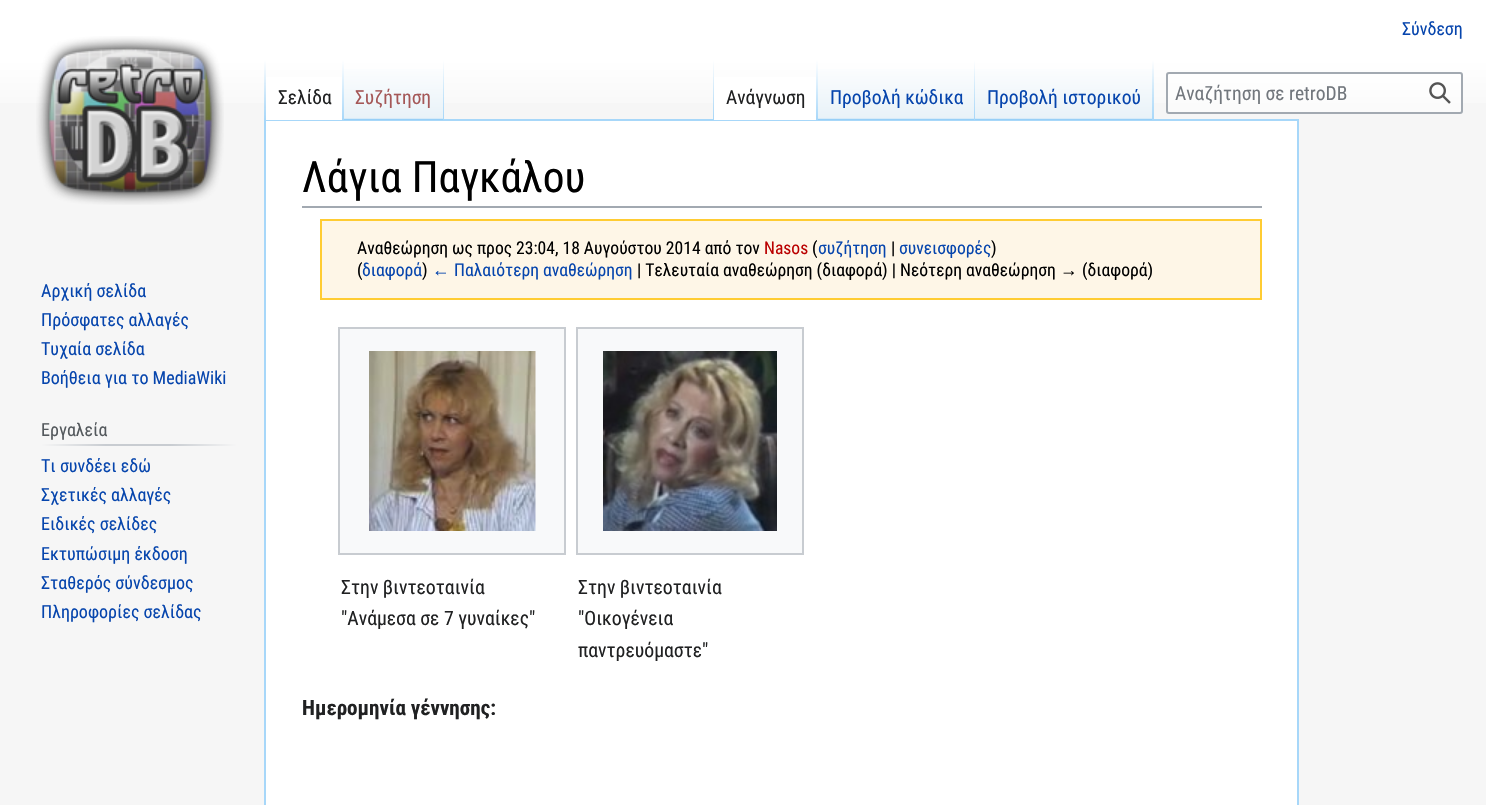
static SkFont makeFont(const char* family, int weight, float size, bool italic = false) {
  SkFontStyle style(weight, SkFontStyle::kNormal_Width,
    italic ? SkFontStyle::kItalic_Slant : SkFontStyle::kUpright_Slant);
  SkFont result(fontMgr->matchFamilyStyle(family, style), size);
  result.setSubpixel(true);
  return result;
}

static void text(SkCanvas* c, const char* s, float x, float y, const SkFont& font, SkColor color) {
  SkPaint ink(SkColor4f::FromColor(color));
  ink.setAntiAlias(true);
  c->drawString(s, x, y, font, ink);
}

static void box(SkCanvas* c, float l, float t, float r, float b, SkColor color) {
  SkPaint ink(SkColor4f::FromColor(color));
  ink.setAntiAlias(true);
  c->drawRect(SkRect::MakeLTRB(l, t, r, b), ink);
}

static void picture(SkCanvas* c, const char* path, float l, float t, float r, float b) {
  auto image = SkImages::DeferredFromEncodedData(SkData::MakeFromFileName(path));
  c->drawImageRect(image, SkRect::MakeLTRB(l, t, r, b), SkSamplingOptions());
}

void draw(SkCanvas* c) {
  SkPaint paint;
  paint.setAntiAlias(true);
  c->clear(0xfff6f6f6);
  {
    const SkColor colors[] = {0xffffffff, 0xfff6f6f6};
    const float stops[] = {0.5f, 1};
    const SkPoint ends[] = {{743, 0}, {743, 120}};
    paint.setShader(SkGradientShader::MakeLinear(ends, colors, stops, 2, SkTileMode::kClamp));
    paint.setAlpha(255);
  }
  c->drawRect(SkRect::MakeLTRB(0, 0, 1486, 103), paint);
  SkFont face1 = makeFont("Roboto Condensed", 400, 18);
  text(c, "Σύνδεση", 1402, 35, face1, 0xff0645ad);
  paint.setShader(nullptr);
  paint.setColor(0xffffffff);
  c->drawRect(SkRect::MakeLTRB(265, 120, 1298, 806), paint);
  paint.setStyle(SkPaint::kStroke_Style);
  paint.setStrokeWidth(2);
  paint.setColor(0xffa7d7f9);
  c->drawRect(SkRect::MakeLTRB(265, 120, 1298, 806), paint);
  paint.setStyle(SkPaint::kFill_Style);
  {
    const SkColor colors[] = {0x00a7d7f9, 0xffa7d7f9};
    const float stops[] = {0, 1};
    const SkPoint ends[] = {{265, 60}, {265, 120}};
    paint.setShader(SkGradientShader::MakeLinear(ends, colors, stops, 2, SkTileMode::kClamp));
    paint.setAlpha(255);
  }
  c->drawRect(SkRect::MakeLTRB(264, 60, 266, 120), paint);
  box(c, 266, 77, 342, 120, 0xffffffff);
  {
    const SkColor colors[] = {0xffffffff, 0xffa7d7f9};
    const float stops[] = {0, 1};
    const SkPoint ends[] = {{343, 60}, {343, 120}};
    paint.setShader(SkGradientShader::MakeLinear(ends, colors, stops, 2, SkTileMode::kClamp));
    paint.setAlpha(255);
  }
  c->drawRect(SkRect::MakeLTRB(342, 60, 344, 120), paint);
  SkFont face2 = makeFont("Roboto Condensed", 400, 19.5f);
  text(c, "Σελίδα", 278, 104, face2, 0xff202122);
  {
    const SkColor colors[] = {0xff77c1f6, 0xffe8f2f8, 0xffffffff};
    const float stops[] = {0, 0.03f, 1};
    const SkPoint ends[] = {{394, 120}, {394, 60}};
    paint.setShader(SkGradientShader::MakeLinear(ends, colors, stops, 3, SkTileMode::kClamp));
    paint.setAlpha(255);
  }
  c->drawRect(SkRect::MakeLTRB(344, 69, 444, 120), paint);
  {
    const SkColor colors[] = {0x00a7d7f9, 0xffa7d7f9};
    const float stops[] = {0, 1};
    const SkPoint ends[] = {{443, 60}, {443, 120}};
    paint.setShader(SkGradientShader::MakeLinear(ends, colors, stops, 2, SkTileMode::kClamp));
    paint.setAlpha(255);
  }
  c->drawRect(SkRect::MakeLTRB(443, 60, 444, 120), paint);
  text(c, "Συζήτηση", 355, 104, face2, 0xffa55858);
  {
    const SkColor colors[] = {0x00a7d7f9, 0xffa7d7f9};
    const float stops[] = {0, 1};
    const SkPoint ends[] = {{713, 60}, {713, 120}};
    paint.setShader(SkGradientShader::MakeLinear(ends, colors, stops, 2, SkTileMode::kClamp));
    paint.setAlpha(255);
  }
  c->drawRect(SkRect::MakeLTRB(713, 60, 714, 120), paint);
  box(c, 714, 77, 816, 120, 0xffffffff);
  {
    const SkColor colors[] = {0xffffffff, 0xffa7d7f9};
    const float stops[] = {0, 1};
    const SkPoint ends[] = {{817, 60}, {817, 120}};
    paint.setShader(SkGradientShader::MakeLinear(ends, colors, stops, 2, SkTileMode::kClamp));
    paint.setAlpha(255);
  }
  c->drawRect(SkRect::MakeLTRB(816, 60, 818, 120), paint);
  text(c, "Ανάγνωση", 726, 104, face2, 0xff202122);
  {
    const SkColor colors[] = {0xff77c1f6, 0xffe8f2f8, 0xffffffff};
    const float stops[] = {0, 0.03f, 1};
    const SkPoint ends[] = {{896, 120}, {896, 60}};
    paint.setShader(SkGradientShader::MakeLinear(ends, colors, stops, 3, SkTileMode::kClamp));
    paint.setAlpha(255);
  }
  c->drawRect(SkRect::MakeLTRB(818, 69, 975, 120), paint);
  {
    const SkColor colors[] = {0x00a7d7f9, 0xffa7d7f9};
    const float stops[] = {0, 1};
    const SkPoint ends[] = {{974, 60}, {974, 120}};
    paint.setShader(SkGradientShader::MakeLinear(ends, colors, stops, 2, SkTileMode::kClamp));
    paint.setAlpha(255);
  }
  c->drawRect(SkRect::MakeLTRB(974, 60, 975, 120), paint);
  text(c, "Προβολή κώδικα", 830, 104, face2, 0xff0645ad);
  {
    const SkColor colors[] = {0xff77c1f6, 0xffe8f2f8, 0xffffffff};
    const float stops[] = {0, 0.03f, 1};
    const SkPoint ends[] = {{1064, 120}, {1064, 60}};
    paint.setShader(SkGradientShader::MakeLinear(ends, colors, stops, 3, SkTileMode::kClamp));
    paint.setAlpha(255);
  }
  c->drawRect(SkRect::MakeLTRB(975, 69, 1154, 120), paint);
  {
    const SkColor colors[] = {0x00a7d7f9, 0xffa7d7f9};
    const float stops[] = {0, 1};
    const SkPoint ends[] = {{1153, 60}, {1153, 120}};
    paint.setShader(SkGradientShader::MakeLinear(ends, colors, stops, 2, SkTileMode::kClamp));
    paint.setAlpha(255);
  }
  c->drawRect(SkRect::MakeLTRB(1152, 60, 1154, 120), paint);
  text(c, "Προβολή ιστορικού", 987, 104, face2, 0xff0645ad);
  paint.setShader(nullptr);
  paint.setColor(0x80ffffff);
  c->drawRoundRect(SkRect::MakeLTRB(1167, 73, 1462, 113), 2, 2, paint);
  paint.setStyle(SkPaint::kStroke_Style);
  paint.setColor(0xffa2a9b1);
  c->drawRoundRect(SkRect::MakeLTRB(1167, 73, 1462, 113), 2, 2, paint);
  text(c, "Αναζήτηση σε retroDB", 1175, 100, face2, 0xff72777d);
  picture(c, "img_01.png", 1429, 82, 1451, 104);
  picture(c, "img_02.png", 36, 36, 224, 205);
  text(c, "Αρχική σελίδα", 41, 297, face1, 0xff0645ad);
  text(c, "Πρόσφατες αλλαγές", 41, 326, face1, 0xff0645ad);
  text(c, "Τυχαία σελίδα", 41, 355, face1, 0xff0645ad);
  text(c, "Βοήθεια για το MediaWiki", 41, 384, face1, 0xff0645ad);
  paint.setStyle(SkPaint::kFill_Style);
  {
    const SkColor colors[] = {0xfff6f6f6, 0xffc8ccd1, 0xffc8ccd1, 0xfff6f6f6};
    const float stops[] = {0, 0.33f, 0.66f, 1};
    const SkPoint ends[] = {{41, 445}, {237, 445}};
    paint.setShader(SkGradientShader::MakeLinear(ends, colors, stops, 4, SkTileMode::kClamp));
    paint.setAlpha(255);
  }
  c->drawRect(SkRect::MakeLTRB(41, 444, 237, 446), paint);
  text(c, "Εργαλεία", 41, 436, face1, 0xff54595d);
  text(c, "Τι συνδέει εδώ", 41, 472, face1, 0xff0645ad);
  text(c, "Σχετικές αλλαγές", 41, 501, face1, 0xff0645ad);
  text(c, "Ειδικές σελίδες", 41, 530, face1, 0xff0645ad);
  text(c, "Εκτυπώσιμη έκδοση", 41, 560, face1, 0xff0645ad);
  text(c, "Σταθερός σύνδεσμος", 41, 589, face1, 0xff0645ad);
  text(c, "Πληροφορίες σελίδας", 41, 618, face1, 0xff0645ad);
  box(c, 302, 206, 1262, 208, 0xffa2a9b1);
  SkFont face3 = makeFont("Roboto Condensed", 400, 43.25f);
  text(c, "Λάγια Παγκάλου", 302, 192, face3, 0xff000000);
  paint.setShader(nullptr);
  paint.setColor(0xfffef6e7);
  c->drawRect(SkRect::MakeLTRB(321, 220, 1261, 299), paint);
  paint.setStyle(SkPaint::kStroke_Style);
  paint.setColor(0xffffcc33);
  c->drawRect(SkRect::MakeLTRB(321, 220, 1261, 299), paint);
  SkFont face4 = makeFont("Roboto Condensed", 400, 17.6f);
  text(c, "Αναθεώρηση ως προς 23:04, 18 Αυγούστου 2014 από τον", 357, 254, face4, 0xff000000);
  text(c, "Nasos", 764, 254, face4, 0xffba0000);
  text(c, "(", 812, 254, face4, 0xff000000);
  text(c, "συζήτηση", 818, 254, face4, 0xff0645ad);
  text(c, "|", 891, 254, face4, 0xff000000);
  text(c, "συνεισφορές", 899, 254, face4, 0xff0645ad);
  text(c, ")", 991, 254, face4, 0xff000000);
  text(c, "(", 357, 276, face4, 0xff000000);
  text(c, "διαφορά", 362, 276, face4, 0xff0645ad);
  text(c, ")", 422, 276, face4, 0xff000000);
  SkFont face5 = makeFont("Liberation Serif", 400, 17.6f);
  text(c, "←", 432, 276, face5, 0xff0645ad);
  text(c, "Παλαιότερη αναθεώρηση", 454, 276, face4, 0xff0645ad);
  text(c, "| Τελευταία αναθεώρηση (διαφορά) | Νεότερη αναθεώρηση", 637, 276, face4, 0xff000000);
  text(c, "→", 1060, 276, face5, 0xff000000);
  text(c, "(διαφορά)", 1082, 276, face4, 0xff000000);
  paint.setStyle(SkPaint::kFill_Style);
  paint.setColor(0xfff8f9fa);
  c->drawRect(SkRect::MakeLTRB(339, 328, 565, 554), paint);
  paint.setStyle(SkPaint::kStroke_Style);
  paint.setColor(0xffc8ccd1);
  c->drawRect(SkRect::MakeLTRB(339, 328, 565, 554), paint);
  picture(c, "img_03.png", 369, 351, 536, 531);
  SkFont face6 = makeFont("Roboto Condensed", 400, 19.75f);
  text(c, "Στην βιντεοταινία", 341, 594, face6, 0xff202122);
  text(c, "\"Ανάμεσα σε 7 γυναίκες\"", 341, 625, face6, 0xff202122);
  paint.setStyle(SkPaint::kFill_Style);
  paint.setColor(0xfff8f9fa);
  c->drawRect(SkRect::MakeLTRB(577, 328, 803, 554), paint);
  paint.setStyle(SkPaint::kStroke_Style);
  paint.setColor(0xffc8ccd1);
  c->drawRect(SkRect::MakeLTRB(577, 328, 803, 554), paint);
  picture(c, "img_04.png", 603, 351, 777, 531);
  text(c, "Στην βιντεοταινία", 578, 594, face6, 0xff202122);
  text(c, "\"Οικογένεια", 578, 625, face6, 0xff202122);
  text(c, "παντρευόμαστε\"", 578, 657, face6, 0xff202122);
  SkFont face7 = makeFont("Roboto Condensed", 700, 21);
  text(c, "Ημερομηνία γέννησης:", 302, 715, face7, 0xff202122);
}
